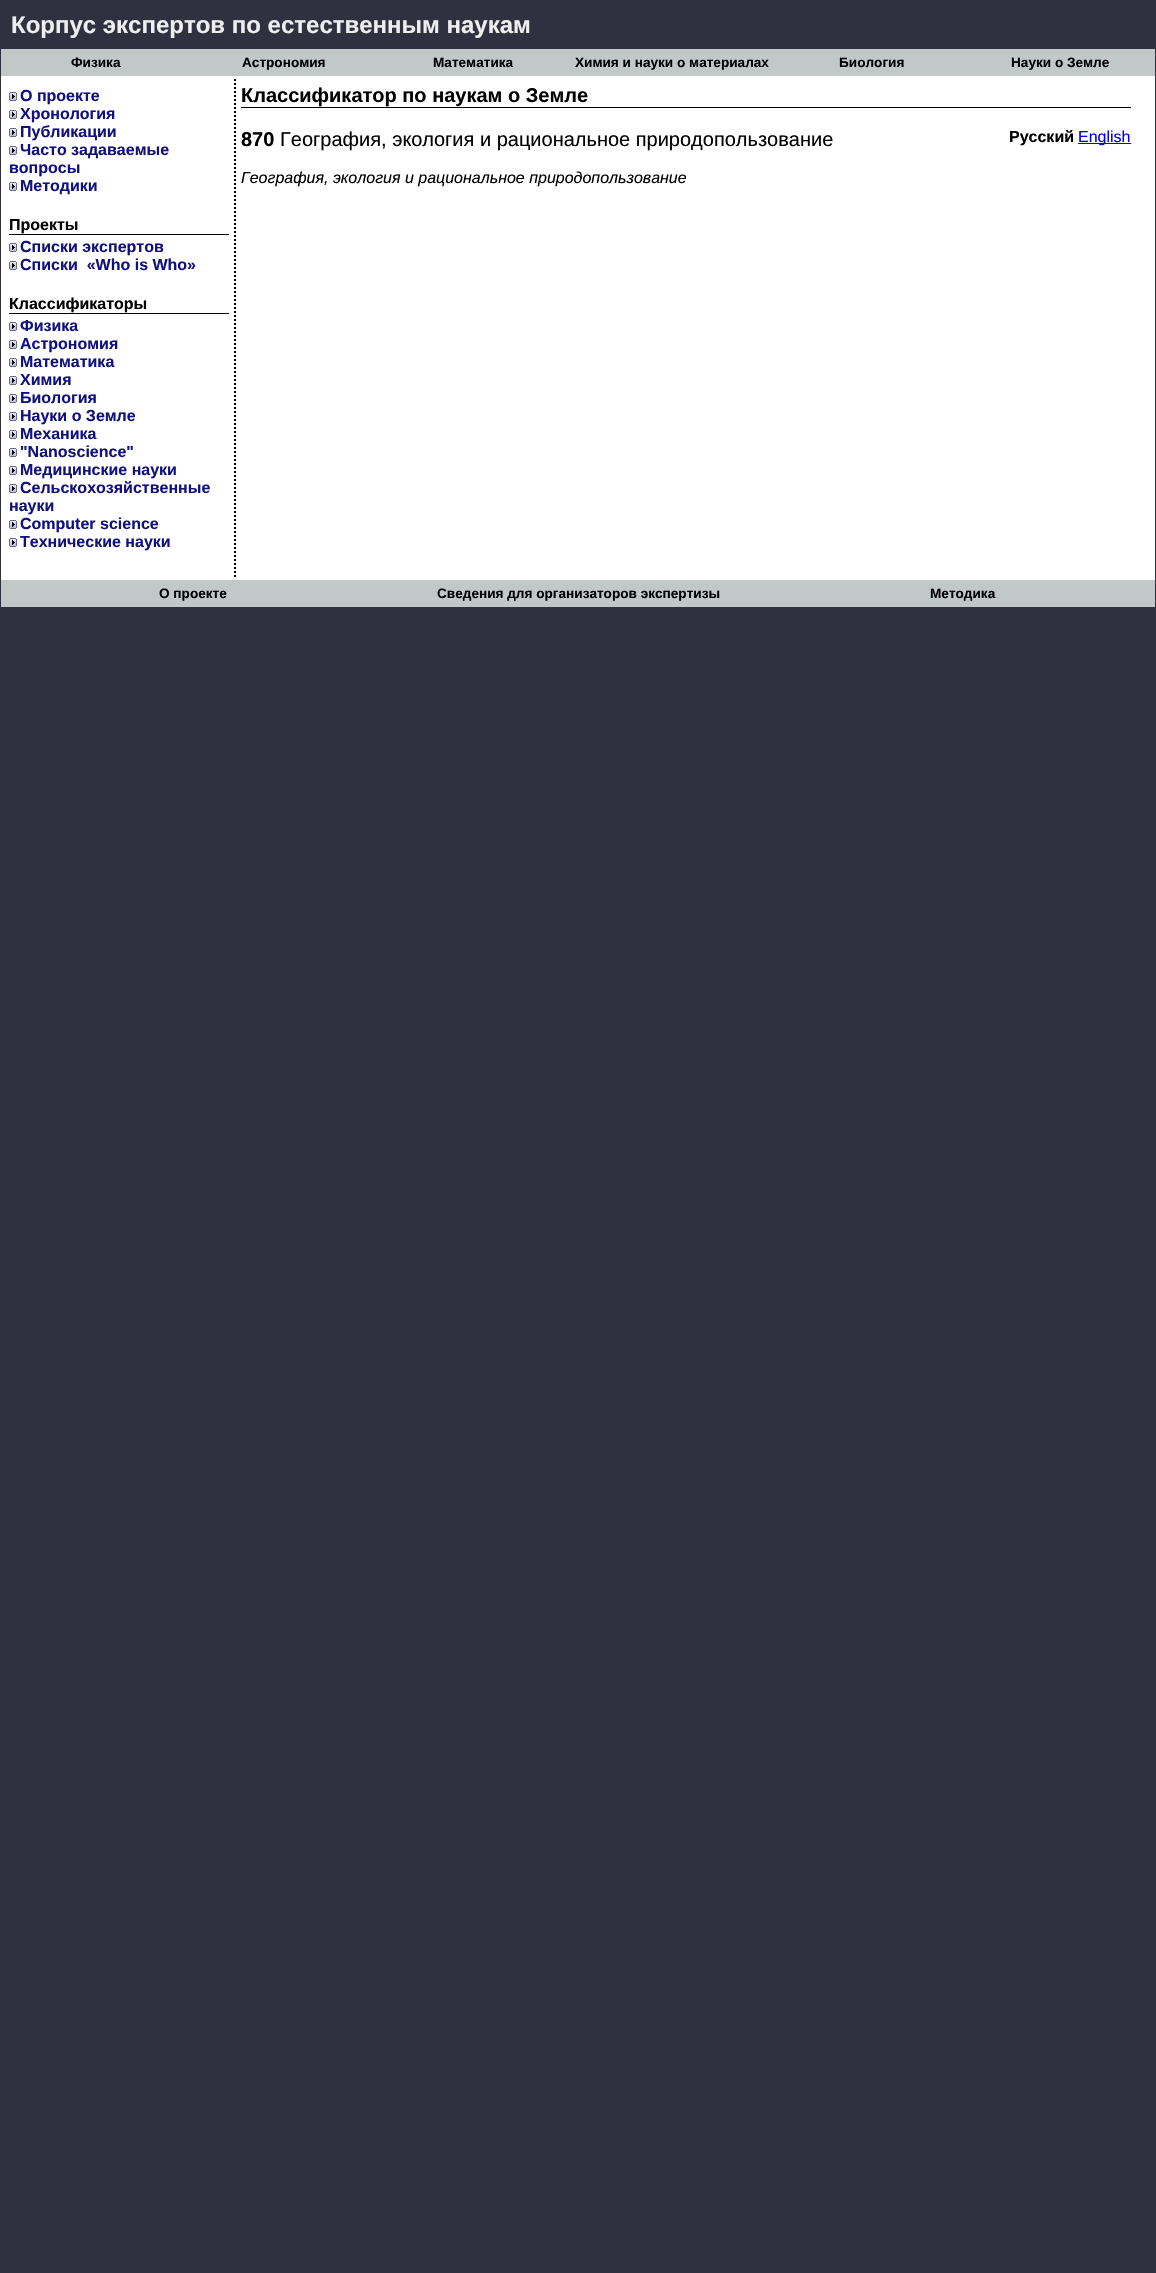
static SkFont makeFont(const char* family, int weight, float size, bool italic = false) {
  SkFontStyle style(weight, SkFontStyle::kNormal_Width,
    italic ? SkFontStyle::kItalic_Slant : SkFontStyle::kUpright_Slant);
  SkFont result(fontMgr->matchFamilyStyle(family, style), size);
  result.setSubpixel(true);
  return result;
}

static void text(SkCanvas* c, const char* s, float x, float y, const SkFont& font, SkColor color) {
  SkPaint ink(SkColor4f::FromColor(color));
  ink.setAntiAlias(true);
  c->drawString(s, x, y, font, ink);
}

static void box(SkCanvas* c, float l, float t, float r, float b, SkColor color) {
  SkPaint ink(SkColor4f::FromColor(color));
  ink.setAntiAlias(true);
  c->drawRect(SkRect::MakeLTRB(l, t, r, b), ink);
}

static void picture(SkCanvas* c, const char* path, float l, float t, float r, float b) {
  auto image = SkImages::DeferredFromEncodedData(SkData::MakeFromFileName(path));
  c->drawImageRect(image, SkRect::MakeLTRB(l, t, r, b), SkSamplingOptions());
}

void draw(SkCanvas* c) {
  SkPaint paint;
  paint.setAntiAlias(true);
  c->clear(0xff303040);
  SkFont face1 = makeFont("Liberation Sans", 700, 24);
  text(c, "Корпус экспертов по естественным наукам", 11, 33, face1, 0xffeeeeee);
  box(c, 1, 49, 1155, 76, 0xffc0c8c8);
  SkFont face2 = makeFont("Liberation Sans", 700, 13.6f);
  text(c, "Физика", 71, 67, face2, 0xff000000);
  text(c, "Астрономия", 242, 67, face2, 0xff000000);
  text(c, "Математика", 433, 67, face2, 0xff000000);
  text(c, "Химия и науки о материалах", 575, 67, face2, 0xff000000);
  text(c, "Биология", 839, 67, face2, 0xff000000);
  text(c, "Науки о Земле", 1011, 67, face2, 0xff000000);
  box(c, 1, 76, 1155, 580, 0xffffffff);
  paint.setStyle(SkPaint::kStroke_Style);
  paint.setStrokeWidth(2);
  paint.setColor(0xff000000);
  paint.setPathEffect(SkDashPathEffect::Make({{2, 2}}, 0));
  c->drawPath(SkPathBuilder().moveTo(235, 79).lineTo(235, 577).detach(), paint);
  paint.setPathEffect(nullptr);
  picture(c, "img_01.png", 9, 92, 17, 101);
  SkFont face3 = makeFont("Liberation Sans", 700, 16);
  text(c, "О проекте", 20, 101, face3, 0xff101080);
  picture(c, "img_01.png", 9, 110, 17, 119);
  text(c, "Хронология", 20, 119, face3, 0xff101080);
  picture(c, "img_01.png", 9, 128, 17, 137);
  text(c, "Публикации", 20, 137, face3, 0xff101080);
  picture(c, "img_01.png", 9, 146, 17, 155);
  text(c, "Часто задаваемые", 20, 155, face3, 0xff101080);
  text(c, "вопросы", 9, 173, face3, 0xff101080);
  picture(c, "img_01.png", 9, 182, 17, 191);
  text(c, "Методики", 20, 191, face3, 0xff101080);
  box(c, 9, 234, 229, 235, 0xff000000);
  text(c, "Проекты", 9, 230, face3, 0xff000000);
  picture(c, "img_01.png", 9, 243, 17, 252);
  text(c, "Cписки экспертов", 20, 252, face3, 0xff101080);
  picture(c, "img_01.png", 9, 261, 17, 270);
  text(c, "Списки  «Who is Who»", 20, 270, face3, 0xff101080);
  box(c, 9, 313, 229, 314, 0xff000000);
  text(c, "Классификаторы", 9, 309, face3, 0xff000000);
  picture(c, "img_01.png", 9, 322, 17, 331);
  text(c, "Физика", 20, 331, face3, 0xff101080);
  picture(c, "img_01.png", 9, 340, 17, 349);
  text(c, "Астрономия", 20, 349, face3, 0xff101080);
  picture(c, "img_01.png", 9, 358, 17, 367);
  text(c, "Математика", 20, 367, face3, 0xff101080);
  picture(c, "img_01.png", 9, 376, 17, 385);
  text(c, "Химия", 20, 385, face3, 0xff101080);
  picture(c, "img_01.png", 9, 394, 17, 403);
  text(c, "Биология", 20, 403, face3, 0xff101080);
  picture(c, "img_01.png", 9, 412, 17, 421);
  text(c, "Науки о Земле", 20, 421, face3, 0xff101080);
  picture(c, "img_01.png", 9, 430, 17, 439);
  text(c, "Механика", 20, 439, face3, 0xff101080);
  picture(c, "img_01.png", 9, 448, 17, 457);
  text(c, "\"Nanoscience\"", 20, 457, face3, 0xff101080);
  picture(c, "img_01.png", 9, 466, 17, 475);
  text(c, "Медицинские науки", 20, 475, face3, 0xff101080);
  picture(c, "img_01.png", 9, 484, 17, 493);
  text(c, "Сельскохозяйственные", 20, 493, face3, 0xff101080);
  text(c, "науки", 9, 511, face3, 0xff101080);
  picture(c, "img_01.png", 9, 520, 17, 529);
  text(c, "Computer science", 20, 529, face3, 0xff101080);
  picture(c, "img_01.png", 9, 538, 17, 547);
  text(c, "Технические науки", 20, 547, face3, 0xff101080);
  box(c, 241, 107, 1131, 108, 0xff000000);
  SkFont face4 = makeFont("Liberation Sans", 700, 20);
  text(c, "Классификатор по наукам о Земле", 241, 102, face4, 0xff000000);
  text(c, "870", 241, 146, face4, 0xff000000);
  SkFont face5 = makeFont("Liberation Sans", 400, 20);
  text(c, "География, экология и рациональное природопользование", 280, 146, face5, 0xff000000);
  text(c, "Русский", 1009, 142, face3, 0xff000000);
  box(c, 1078, 143, 1131, 144, 0xff0000ee);
  SkFont face6 = makeFont("Liberation Sans", 400, 16);
  text(c, "English", 1078, 142, face6, 0xff0000ee);
  SkFont face7 = makeFont("Liberation Sans", 400, 16, true);
  text(c, "География, экология и рациональное природопользование", 241, 183, face7, 0xff000000);
  box(c, 1, 580, 1155, 607, 0xffc0c8c8);
  text(c, "О проекте", 159, 598, face2, 0xff000000);
  text(c, "Сведения для организаторов экспертизы", 437, 598, face2, 0xff000000);
  text(c, "Методика", 930, 598, face2, 0xff000000);
}
